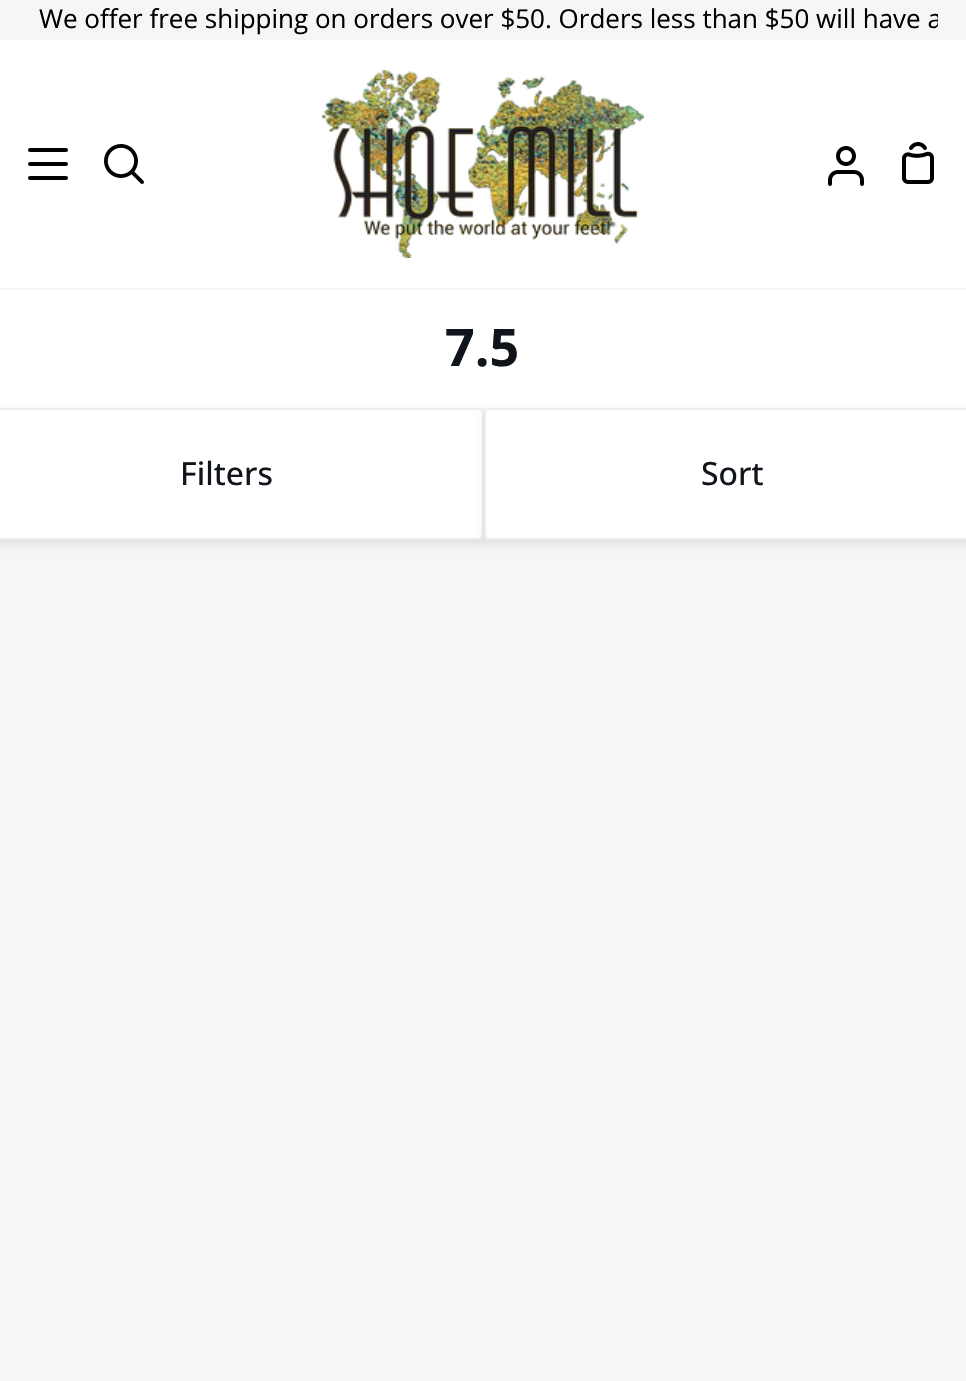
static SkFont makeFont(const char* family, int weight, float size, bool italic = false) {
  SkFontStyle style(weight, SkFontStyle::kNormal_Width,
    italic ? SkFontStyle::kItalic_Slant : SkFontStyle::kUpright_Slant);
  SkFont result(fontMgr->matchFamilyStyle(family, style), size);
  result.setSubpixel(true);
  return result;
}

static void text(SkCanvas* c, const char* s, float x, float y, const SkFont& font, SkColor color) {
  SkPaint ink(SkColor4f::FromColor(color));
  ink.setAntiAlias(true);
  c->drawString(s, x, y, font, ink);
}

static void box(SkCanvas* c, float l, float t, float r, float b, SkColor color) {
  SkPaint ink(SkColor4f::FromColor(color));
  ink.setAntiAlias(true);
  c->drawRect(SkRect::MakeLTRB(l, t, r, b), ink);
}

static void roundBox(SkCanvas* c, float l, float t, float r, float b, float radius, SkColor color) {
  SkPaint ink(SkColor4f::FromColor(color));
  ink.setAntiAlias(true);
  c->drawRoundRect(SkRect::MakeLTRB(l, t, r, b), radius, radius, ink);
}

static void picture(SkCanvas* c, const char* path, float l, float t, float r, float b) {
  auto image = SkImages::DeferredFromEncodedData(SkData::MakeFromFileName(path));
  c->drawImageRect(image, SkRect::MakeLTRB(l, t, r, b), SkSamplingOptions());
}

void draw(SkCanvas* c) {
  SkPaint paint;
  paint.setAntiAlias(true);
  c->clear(0xffffffff);
  box(c, 0, 288, 966, 290, 0xfff5f6f9);
  box(c, 0, 0, 966, 40, 0xfff6f6f9);
  c->save();
  c->clipRect(SkRect::MakeLTRB(28, 0, 938, 40));
  SkFont face1 = makeFont("Open Sans", 400, 26);
  text(c, "We offer free shipping on orders over $50. Orders less than $50 will have a", 39, 28, face1, 0xff000000);
  c->restore();
  roundBox(c, 28, 148, 68, 152, 2, 0xff000000);
  roundBox(c, 28, 162, 68, 166, 2, 0xff000000);
  roundBox(c, 28, 176, 68, 180, 2, 0xff000000);
  picture(c, "img_01.png", 104, 144, 144, 184);
  picture(c, "img_02.png", 322, 70, 644, 258);
  picture(c, "img_03.png", 828, 146, 864, 186);
  picture(c, "img_04.png", 902, 142, 934, 184);
  box(c, 0, 408, 966, 1381, 0xfff6f6f9);
  SkFont face2 = makeFont("Open Sans", 700, 52);
  text(c, "7.5", 445, 366, face2, 0xff10141b);
  paint.setColor(0x1a000000);
  paint.setMaskFilter(SkMaskFilter::MakeBlur(kNormal_SkBlurStyle, 5));
  c->drawRoundRect(SkRect::MakeLTRB(-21, 412, 484, 544), 6, 6, paint);
  paint.setMaskFilter(nullptr);
  paint.setColor(0xffffffff);
  c->drawPath(SkPathBuilder().moveTo(0, 408).lineTo(478, 408).cubicTo(481.5f, 408, 484, 410.5f, 484, 414).lineTo(484, 534).cubicTo(484, 537.5f, 481.5f, 540, 478, 540).lineTo(0, 540).close().detach(), paint);
  paint.setStyle(SkPaint::kStroke_Style);
  paint.setStrokeWidth(2);
  paint.setColor(0xffedecee);
  c->drawRoundRect(SkRect::MakeLTRB(-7, 409, 483, 539), 5, 5, paint);
  SkFont face3 = makeFont("Open Sans", 500, 32);
  text(c, "Filters", 180, 485, face3, 0xff10141b);
  paint.setStyle(SkPaint::kFill_Style);
  paint.setColor(0x1a000000);
  paint.setMaskFilter(SkMaskFilter::MakeBlur(kNormal_SkBlurStyle, 5));
  c->drawRoundRect(SkRect::MakeLTRB(484, 412, 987, 544), 6, 6, paint);
  paint.setMaskFilter(nullptr);
  paint.setColor(0xffffffff);
  c->drawPath(SkPathBuilder().moveTo(490, 408).lineTo(966, 408).lineTo(966, 540).lineTo(490, 540).cubicTo(486.5f, 540, 484, 537.5f, 484, 534).lineTo(484, 414).cubicTo(484, 410.5f, 486.5f, 408, 490, 408).close().detach(), paint);
  paint.setStyle(SkPaint::kStroke_Style);
  paint.setColor(0xffedecee);
  c->drawRoundRect(SkRect::MakeLTRB(485, 409, 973, 539), 5, 5, paint);
  text(c, "Sort", 701, 485, face3, 0xff10141b);
}
